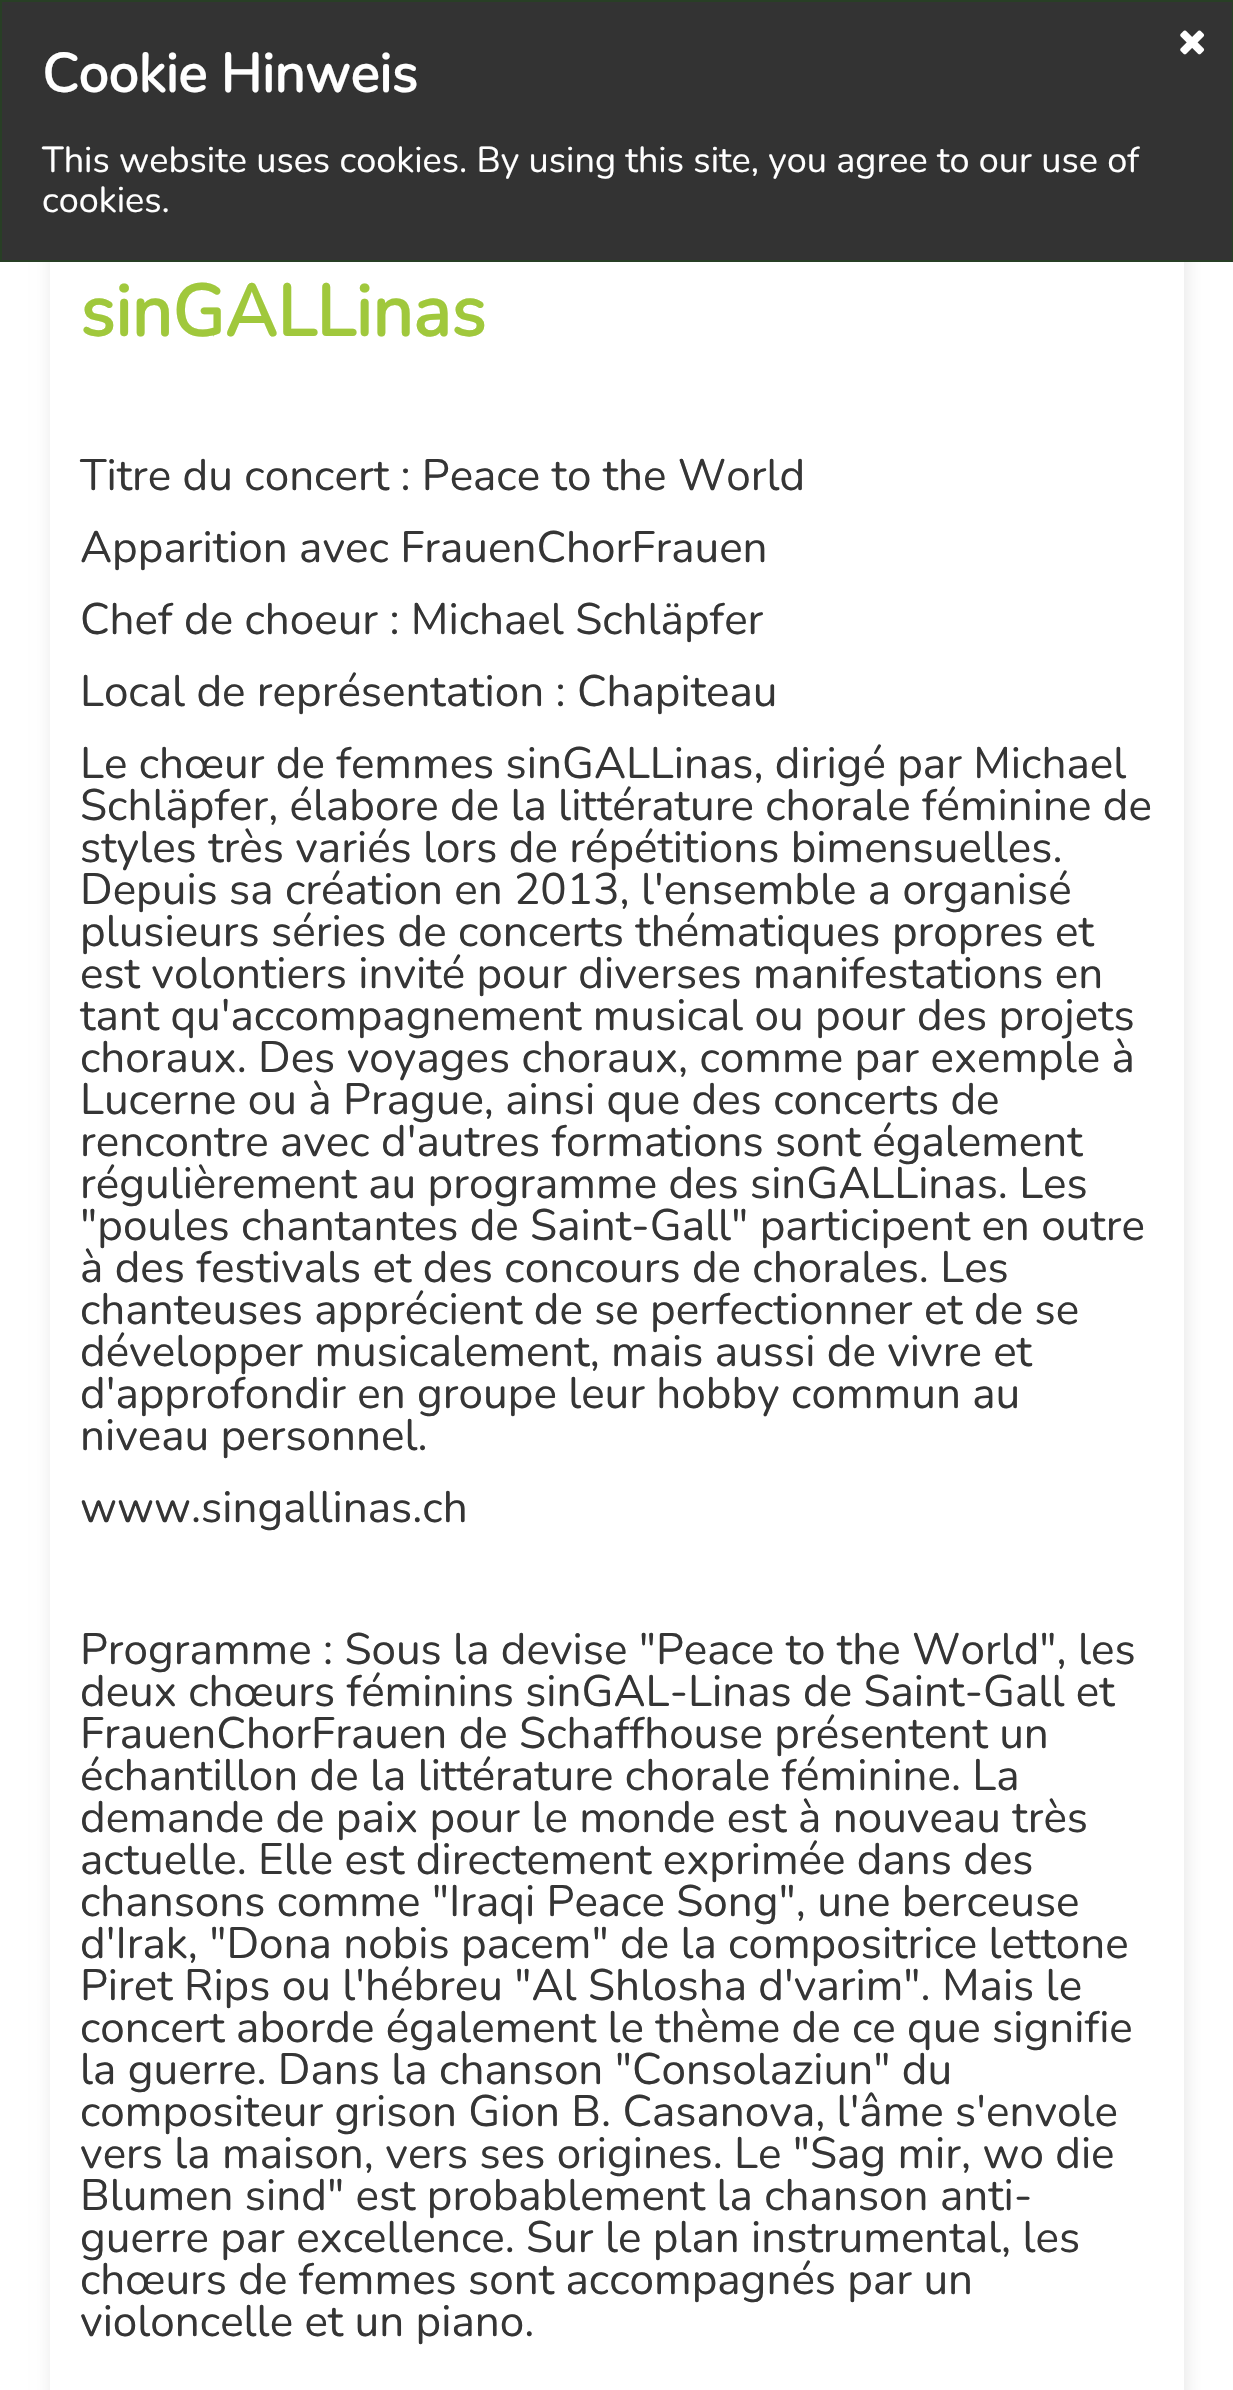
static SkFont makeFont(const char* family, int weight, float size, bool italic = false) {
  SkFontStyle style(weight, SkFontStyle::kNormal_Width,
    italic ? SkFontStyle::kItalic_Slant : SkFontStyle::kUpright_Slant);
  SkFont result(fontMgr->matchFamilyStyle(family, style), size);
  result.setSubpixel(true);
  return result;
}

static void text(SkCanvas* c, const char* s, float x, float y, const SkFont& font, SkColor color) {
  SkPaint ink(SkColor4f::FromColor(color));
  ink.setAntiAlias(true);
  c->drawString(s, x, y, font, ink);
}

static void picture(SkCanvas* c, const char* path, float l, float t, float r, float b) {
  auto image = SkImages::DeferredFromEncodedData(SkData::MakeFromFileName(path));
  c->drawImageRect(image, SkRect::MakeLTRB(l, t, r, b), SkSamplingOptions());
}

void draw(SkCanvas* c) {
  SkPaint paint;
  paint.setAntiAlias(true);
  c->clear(0xffffffff);
  c->save();
  c->clipPath(SkPathBuilder(SkPathFillType::kEvenOdd).moveTo(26, 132).lineTo(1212, 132).lineTo(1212, 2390).lineTo(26, 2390).close().moveTo(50, 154).lineTo(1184, 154).lineTo(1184, 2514).lineTo(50, 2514).close().detach(), true);
  paint.setColor(0x14000000);
  paint.setMaskFilter(SkMaskFilter::MakeBlur(kNormal_SkBlurStyle, 7.5f));
  c->drawRect(SkRect::MakeLTRB(50, 156, 1188, 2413), paint);
  paint.setMaskFilter(nullptr);
  c->restore();
  paint.setColor(0xff333333);
  c->drawRect(SkRect::MakeLTRB(1, 1, 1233, 261), paint);
  paint.setStyle(SkPaint::kStroke_Style);
  paint.setStrokeWidth(2);
  paint.setColor(0xff283f25);
  c->drawRect(SkRect::MakeLTRB(1, 1, 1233, 261), paint);
  picture(c, "img_01.png", 1180, 30, 1205, 55);
  SkFont face1 = makeFont("Nunito", 700, 54);
  text(c, "Cookie Hinweis", 42, 92, face1, 0xffffffff);
  SkFont face2 = makeFont("Nunito", 200, 36);
  text(c, "This website uses cookies. By using this site, you agree to our use of", 42, 172, face2, 0xffffffff);
  text(c, "cookies.", 42, 212, face2, 0xffffffff);
  SkFont face3 = makeFont("Nunito", 700, 72);
  text(c, "sinGALLinas", 80, 336, face3, 0xffa0c83c);
  SkFont face4 = makeFont("Nunito", 200, 44);
  text(c, "Titre du concert : Peace to the World", 80, 490, face4, 0xff353535);
  text(c, "Apparition avec FrauenChorFrauen", 80, 562, face4, 0xff353535);
  text(c, "Chef de choeur : Michael Schläpfer", 80, 634, face4, 0xff353535);
  text(c, "Local de représentation : Chapiteau", 80, 706, face4, 0xff353535);
  text(c, "Le chœur de femmes sinGALLinas, dirigé par Michael", 80, 778, face4, 0xff353535);
  text(c, "Schläpfer, élabore de la littérature chorale féminine de", 80, 820, face4, 0xff353535);
  text(c, "styles très variés lors de répétitions bimensuelles.", 80, 862, face4, 0xff353535);
  text(c, "Depuis sa création en 2013, l'ensemble a organisé", 80, 904, face4, 0xff353535);
  text(c, "plusieurs séries de concerts thématiques propres et", 80, 946, face4, 0xff353535);
  text(c, "est volontiers invité pour diverses manifestations en", 80, 988, face4, 0xff353535);
  text(c, "tant qu'accompagnement musical ou pour des projets", 80, 1030, face4, 0xff353535);
  text(c, "choraux. Des voyages choraux, comme par exemple à", 80, 1072, face4, 0xff353535);
  text(c, "Lucerne ou à Prague, ainsi que des concerts de", 80, 1114, face4, 0xff353535);
  text(c, "rencontre avec d'autres formations sont également", 80, 1156, face4, 0xff353535);
  text(c, "régulièrement au programme des sinGALLinas. Les", 80, 1198, face4, 0xff353535);
  text(c, "\"poules chantantes de Saint-Gall\" participent en outre", 80, 1240, face4, 0xff353535);
  text(c, "à des festivals et des concours de chorales. Les", 80, 1282, face4, 0xff353535);
  text(c, "chanteuses apprécient de se perfectionner et de se", 80, 1324, face4, 0xff353535);
  text(c, "développer musicalement, mais aussi de vivre et", 80, 1366, face4, 0xff353535);
  text(c, "d'approfondir en groupe leur hobby commun au", 80, 1408, face4, 0xff353535);
  text(c, "niveau personnel.", 80, 1450, face4, 0xff353535);
  text(c, "www.singallinas.ch", 80, 1522, face4, 0xff353535);
  text(c, "Programme : Sous la devise \"Peace to the World\", les", 80, 1664, face4, 0xff353535);
  text(c, "deux chœurs féminins sinGAL-Linas de Saint-Gall et", 80, 1706, face4, 0xff353535);
  text(c, "FrauenChorFrauen de Schaffhouse présentent un", 80, 1748, face4, 0xff353535);
  text(c, "échantillon de la littérature chorale féminine. La", 80, 1790, face4, 0xff353535);
  text(c, "demande de paix pour le monde est à nouveau très", 80, 1832, face4, 0xff353535);
  text(c, "actuelle. Elle est directement exprimée dans des", 80, 1874, face4, 0xff353535);
  text(c, "chansons comme \"Iraqi Peace Song\", une berceuse", 80, 1916, face4, 0xff353535);
  text(c, "d'Irak, \"Dona nobis pacem\" de la compositrice lettone", 80, 1958, face4, 0xff353535);
  text(c, "Piret Rips ou l'hébreu \"Al Shlosha d'varim\". Mais le", 80, 2000, face4, 0xff353535);
  text(c, "concert aborde également le thème de ce que signifie", 80, 2042, face4, 0xff353535);
  text(c, "la guerre. Dans la chanson \"Consolaziun\" du", 80, 2084, face4, 0xff353535);
  text(c, "compositeur grison Gion B. Casanova, l'âme s'envole", 80, 2126, face4, 0xff353535);
  text(c, "vers la maison, vers ses origines. Le \"Sag mir, wo die", 80, 2168, face4, 0xff353535);
  text(c, "Blumen sind\" est probablement la chanson anti-", 80, 2210, face4, 0xff353535);
  text(c, "guerre par excellence. Sur le plan instrumental, les", 80, 2252, face4, 0xff353535);
  text(c, "chœurs de femmes sont accompagnés par un", 80, 2294, face4, 0xff353535);
  text(c, "violoncelle et un piano.", 80, 2336, face4, 0xff353535);
}
